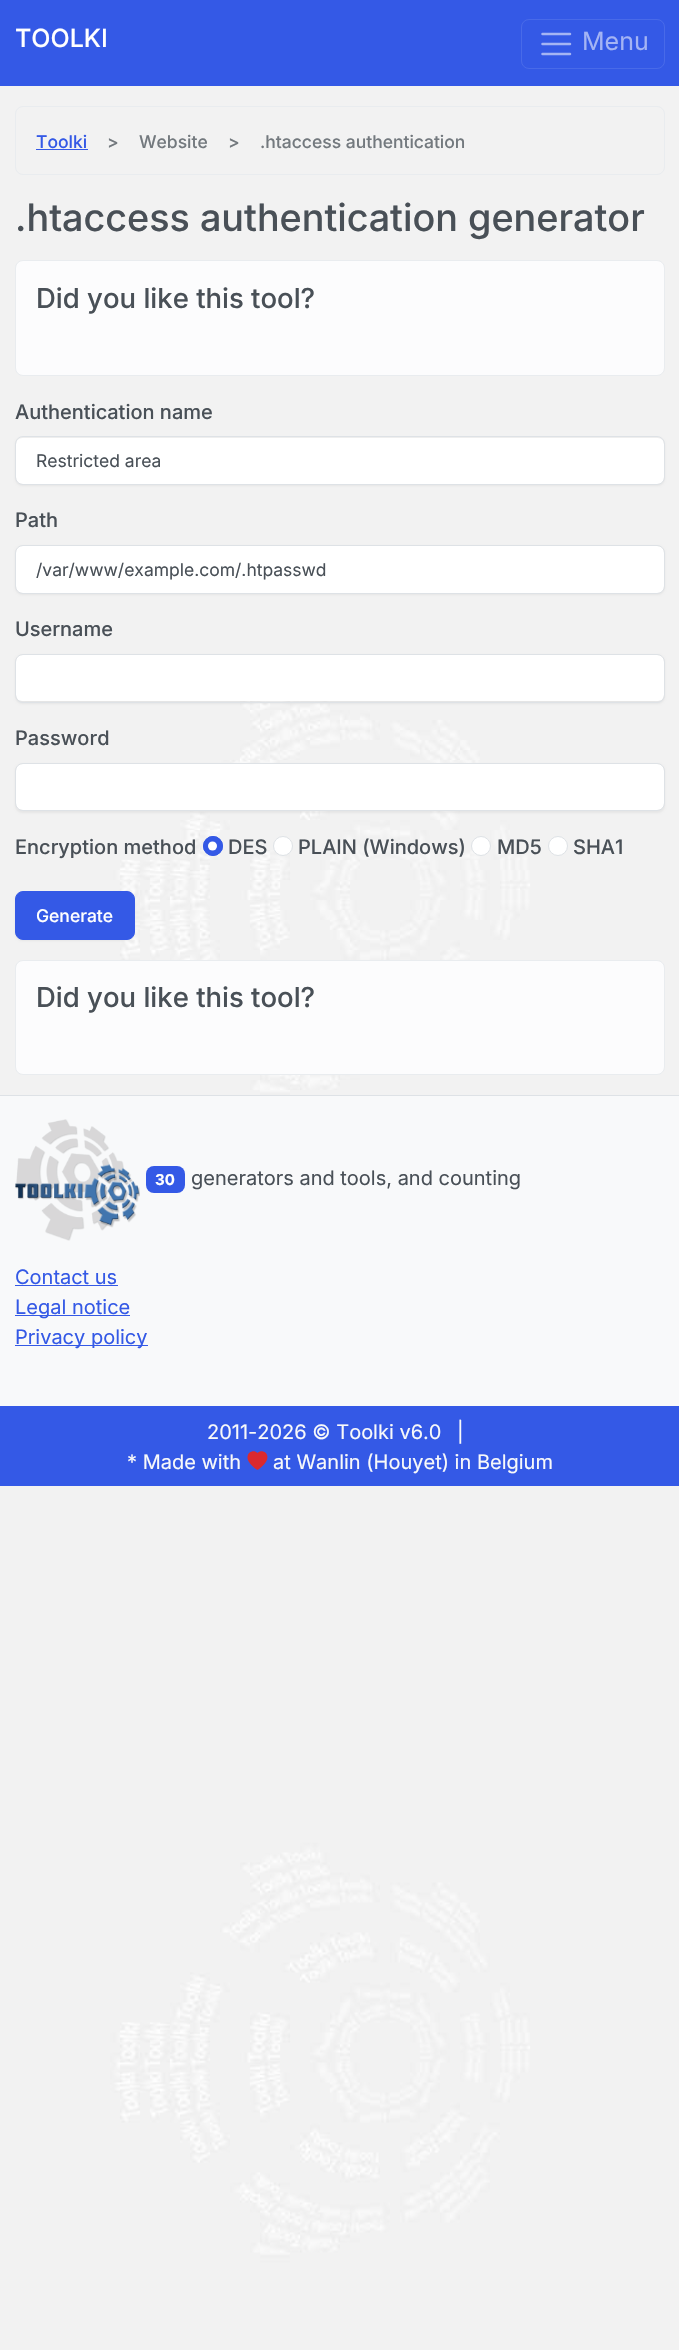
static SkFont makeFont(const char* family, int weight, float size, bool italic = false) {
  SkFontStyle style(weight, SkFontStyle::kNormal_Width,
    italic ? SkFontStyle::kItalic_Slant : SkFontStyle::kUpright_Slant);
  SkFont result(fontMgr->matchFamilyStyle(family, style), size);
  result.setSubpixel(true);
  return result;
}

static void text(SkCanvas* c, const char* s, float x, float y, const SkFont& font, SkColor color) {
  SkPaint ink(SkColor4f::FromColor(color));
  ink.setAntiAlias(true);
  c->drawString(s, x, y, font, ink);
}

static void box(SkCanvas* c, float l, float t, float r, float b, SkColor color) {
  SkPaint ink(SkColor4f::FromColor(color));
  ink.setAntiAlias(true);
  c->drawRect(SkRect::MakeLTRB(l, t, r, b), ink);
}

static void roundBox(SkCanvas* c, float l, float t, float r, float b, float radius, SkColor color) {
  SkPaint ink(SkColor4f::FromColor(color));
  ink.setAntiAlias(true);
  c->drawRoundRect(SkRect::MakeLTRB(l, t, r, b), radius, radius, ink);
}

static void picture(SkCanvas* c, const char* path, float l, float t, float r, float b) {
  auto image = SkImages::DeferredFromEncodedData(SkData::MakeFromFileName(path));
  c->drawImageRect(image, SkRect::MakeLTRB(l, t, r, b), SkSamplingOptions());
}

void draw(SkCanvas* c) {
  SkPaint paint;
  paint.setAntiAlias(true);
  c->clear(0xffffffff);
  picture(c, "img_01.png", 0, 86, 679, 2350);
  box(c, 0, 0, 679, 86, 0xff3459e6);
  SkFont face1 = makeFont("Inter", 500, 25);
  text(c, "TOOLKI", 15, 47, face1, 0xffffffff);
  paint.setStyle(SkPaint::kStroke_Style);
  paint.setStrokeWidth(1);
  paint.setColor(0xff486ae9);
  c->drawRoundRect(SkRect::MakeLTRB(521.5f, 19.5f, 664.5f, 68.5f), 7.5f, 7.5f, paint);
  paint.setStrokeWidth(2.5f);
  paint.setStrokeCap(SkPaint::kRound_Cap);
  paint.setColor(0xffa4b4f4);
  c->drawPath(SkPathBuilder().moveTo(542.5f, 34).lineTo(570, 34).moveTo(542.5f, 44).lineTo(570, 44).moveTo(542.5f, 54).lineTo(570, 54).detach(), paint);
  SkFont face2 = makeFont("Inter", 400, 25);
  text(c, "Menu", 582, 50, face2, 0xffa4b4f4);
  paint.setStrokeWidth(1);
  paint.setStrokeCap(SkPaint::kButt_Cap);
  paint.setColor(0xffe9ecef);
  c->drawRoundRect(SkRect::MakeLTRB(15.5f, 106.5f, 664.5f, 174.5f), 7.5f, 7.5f, paint);
  SkFont face3 = makeFont("Inter", 500, 17.5f);
  text(c, "Toolki", 36, 148, face3, 0xff3459e6);
  box(c, 36, 149, 88, 150, 0xff3459e6);
  text(c, ">", 107, 148, face3, 0xff73797e);
  text(c, "Website", 139, 148, face3, 0xff73797e);
  text(c, ">", 228, 148, face3, 0xff73797e);
  text(c, ".htaccess authentication", 260, 148, face3, 0xff73797e);
  SkFont face4 = makeFont("Inter", 500, 37.75f);
  text(c, ".htaccess authentication generator", 15, 231, face4, 0xff495057);
  paint.setStyle(SkPaint::kFill_Style);
  paint.setColor(0xfffcfcfd);
  c->drawRoundRect(SkRect::MakeLTRB(15.5f, 260.5f, 664.5f, 375.5f), 7.5f, 7.5f, paint);
  paint.setStyle(SkPaint::kStroke_Style);
  paint.setColor(0xffe9ecef);
  c->drawRoundRect(SkRect::MakeLTRB(15.5f, 260.5f, 664.5f, 375.5f), 7.5f, 7.5f, paint);
  SkFont face5 = makeFont("Inter", 500, 27.5f);
  text(c, "Did you like this tool?", 36, 308, face5, 0xff495057);
  SkFont face6 = makeFont("Inter", 500, 20);
  text(c, "Authentication name", 15, 419, face6, 0xff495057);
  paint.setStyle(SkPaint::kFill_Style);
  paint.setColor(0x0d000000);
  paint.setMaskFilter(SkMaskFilter::MakeBlur(kNormal_SkBlurStyle, 1));
  c->drawRoundRect(SkRect::MakeLTRB(15, 438, 665, 486), 8, 8, paint);
  paint.setMaskFilter(nullptr);
  roundBox(c, 16, 438, 664, 484, 6, 0xffffffff);
  paint.setStyle(SkPaint::kStroke_Style);
  paint.setColor(0xffdee2e6);
  c->drawRoundRect(SkRect::MakeLTRB(15.5f, 436.5f, 664.5f, 484.5f), 7.5f, 7.5f, paint);
  SkFont face7 = makeFont("Inter", 400, 17.5f);
  text(c, "Restricted area", 36, 467, face7, 0xff495057);
  text(c, "Path", 15, 527, face6, 0xff495057);
  paint.setStyle(SkPaint::kFill_Style);
  paint.setColor(0x0d000000);
  paint.setMaskFilter(SkMaskFilter::MakeBlur(kNormal_SkBlurStyle, 1));
  c->drawRoundRect(SkRect::MakeLTRB(15, 546, 665, 595), 8, 8, paint);
  paint.setMaskFilter(nullptr);
  roundBox(c, 16, 546, 664, 593, 6, 0xffffffff);
  paint.setStyle(SkPaint::kStroke_Style);
  paint.setColor(0xffdee2e6);
  c->drawRoundRect(SkRect::MakeLTRB(15.5f, 545.5f, 664.5f, 593.5f), 7.5f, 7.5f, paint);
  text(c, "/var/www/example.com/.htpasswd", 36, 576, face7, 0xff495057);
  text(c, "Username", 15, 636, face6, 0xff495057);
  paint.setStyle(SkPaint::kFill_Style);
  paint.setColor(0x0d000000);
  paint.setMaskFilter(SkMaskFilter::MakeBlur(kNormal_SkBlurStyle, 1));
  c->drawRoundRect(SkRect::MakeLTRB(15, 655, 665, 704), 8, 8, paint);
  paint.setMaskFilter(nullptr);
  roundBox(c, 16, 655, 664, 701, 6, 0xffffffff);
  paint.setStyle(SkPaint::kStroke_Style);
  paint.setColor(0xffdee2e6);
  c->drawRoundRect(SkRect::MakeLTRB(15.5f, 654.5f, 664.5f, 702.5f), 7.5f, 7.5f, paint);
  text(c, "Password", 15, 745, face6, 0xff495057);
  paint.setStyle(SkPaint::kFill_Style);
  paint.setColor(0x0d000000);
  paint.setMaskFilter(SkMaskFilter::MakeBlur(kNormal_SkBlurStyle, 1));
  c->drawRoundRect(SkRect::MakeLTRB(15, 764, 665, 813), 8, 8, paint);
  paint.setMaskFilter(nullptr);
  roundBox(c, 16, 764, 664, 810, 6, 0xffffffff);
  paint.setStyle(SkPaint::kStroke_Style);
  paint.setColor(0xffdee2e6);
  c->drawRoundRect(SkRect::MakeLTRB(15.5f, 763.5f, 664.5f, 810.5f), 7.5f, 7.5f, paint);
  text(c, "Encryption method", 15, 854, face6, 0xff495057);
  paint.setStyle(SkPaint::kFill_Style);
  paint.setColor(0xff3459e6);
  c->drawCircle(213, 846, 10, paint);
  paint.setColor(0xffffffff);
  c->drawCircle(212.5f, 846, 4.5f, paint);
  paint.setStyle(SkPaint::kStroke_Style);
  paint.setColor(0xff3459e6);
  c->drawCircle(213, 846, 9.5f, paint);
  text(c, "DES", 228, 854, face6, 0xff495057);
  paint.setStyle(SkPaint::kFill_Style);
  paint.setColor(0xffffffff);
  c->drawCircle(283, 846, 9.5f, paint);
  paint.setStyle(SkPaint::kStroke_Style);
  paint.setColor(0xffdee2e6);
  c->drawCircle(283, 846, 9.5f, paint);
  text(c, "PLAIN (Windows)", 298, 854, face6, 0xff495057);
  paint.setStyle(SkPaint::kFill_Style);
  paint.setColor(0xffffffff);
  c->drawCircle(481, 846, 9.5f, paint);
  paint.setStyle(SkPaint::kStroke_Style);
  paint.setColor(0xffdee2e6);
  c->drawCircle(481, 846, 9.5f, paint);
  text(c, "MD5", 497, 854, face6, 0xff495057);
  paint.setStyle(SkPaint::kFill_Style);
  paint.setColor(0xffffffff);
  c->drawCircle(558, 846, 9.5f, paint);
  paint.setStyle(SkPaint::kStroke_Style);
  paint.setColor(0xffdee2e6);
  c->drawCircle(558, 846, 9.5f, paint);
  text(c, "SHA1", 573, 854, face6, 0xff495057);
  paint.setStyle(SkPaint::kFill_Style);
  paint.setColor(0x0d000000);
  paint.setMaskFilter(SkMaskFilter::MakeBlur(kNormal_SkBlurStyle, 1));
  c->drawRoundRect(SkRect::MakeLTRB(15, 893, 135, 941), 8, 8, paint);
  paint.setMaskFilter(nullptr);
  paint.setColor(0xff3459e6);
  c->drawRoundRect(SkRect::MakeLTRB(15.5f, 891.5f, 134.5f, 939.5f), 7.5f, 7.5f, paint);
  paint.setStyle(SkPaint::kStroke_Style);
  c->drawRoundRect(SkRect::MakeLTRB(15.5f, 891.5f, 134.5f, 939.5f), 7.5f, 7.5f, paint);
  text(c, "Generate", 36, 922, face3, 0xffffffff);
  paint.setStyle(SkPaint::kFill_Style);
  paint.setColor(0xfffcfcfd);
  c->drawRoundRect(SkRect::MakeLTRB(15.5f, 960.5f, 664.5f, 1074.5f), 7.5f, 7.5f, paint);
  paint.setStyle(SkPaint::kStroke_Style);
  paint.setColor(0xffe9ecef);
  c->drawRoundRect(SkRect::MakeLTRB(15.5f, 960.5f, 664.5f, 1074.5f), 7.5f, 7.5f, paint);
  text(c, "Did you like this tool?", 36, 1007, face5, 0xff495057);
  box(c, 0, 1096, 679, 1406, 0xfff8f9fa);
  box(c, 0, 1095, 679, 1096, 0xffdee2e6);
  picture(c, "img_02.png", 15, 1119, 140, 1241);
  roundBox(c, 146, 1166, 185, 1193, 8, 0xff3459e6);
  SkFont face8 = makeFont("Inter", 700, 15);
  text(c, "30", 155, 1185, face8, 0xffffffff);
  SkFont face9 = makeFont("Inter", 400, 20);
  text(c, "generators and tools, and counting", 191, 1185, face9, 0xff495057);
  text(c, "Contact us", 15, 1284, face9, 0xff3459e6);
  box(c, 15, 1285, 118, 1286, 0xff3459e6);
  box(c, 15, 1315, 130, 1316, 0xff3459e6);
  text(c, "Legal notice", 15, 1314, face9, 0xff3459e6);
  box(c, 15, 1345, 148, 1346, 0xff3459e6);
  text(c, "Privacy policy", 15, 1344, face9, 0xff3459e6);
  box(c, 0, 1406, 679, 1486, 0xff3459e6);
  text(c, "2011-2026 © Toolki v6.0", 207, 1439, face9, 0xfff8f9fa);
  text(c, "|", 457, 1439, face9, 0xfff8f9fa);
  text(c, "* Made with", 127, 1469, face9, 0xfff8f9fa);
  paint.setStyle(SkPaint::kFill_Style);
  paint.setColor(0xffda292e);
  c->drawPath(SkPathBuilder().moveTo(257.5f, 1453).cubicTo(263.5f, 1447, 276.5f, 1457.5f, 257.5f, 1470).cubicTo(238.5f, 1457.5f, 251.5f, 1447, 257.5f, 1453).close().detach(), paint);
  text(c, "at Wanlin (Houyet) in Belgium", 273, 1469, face9, 0xfff8f9fa);
}
